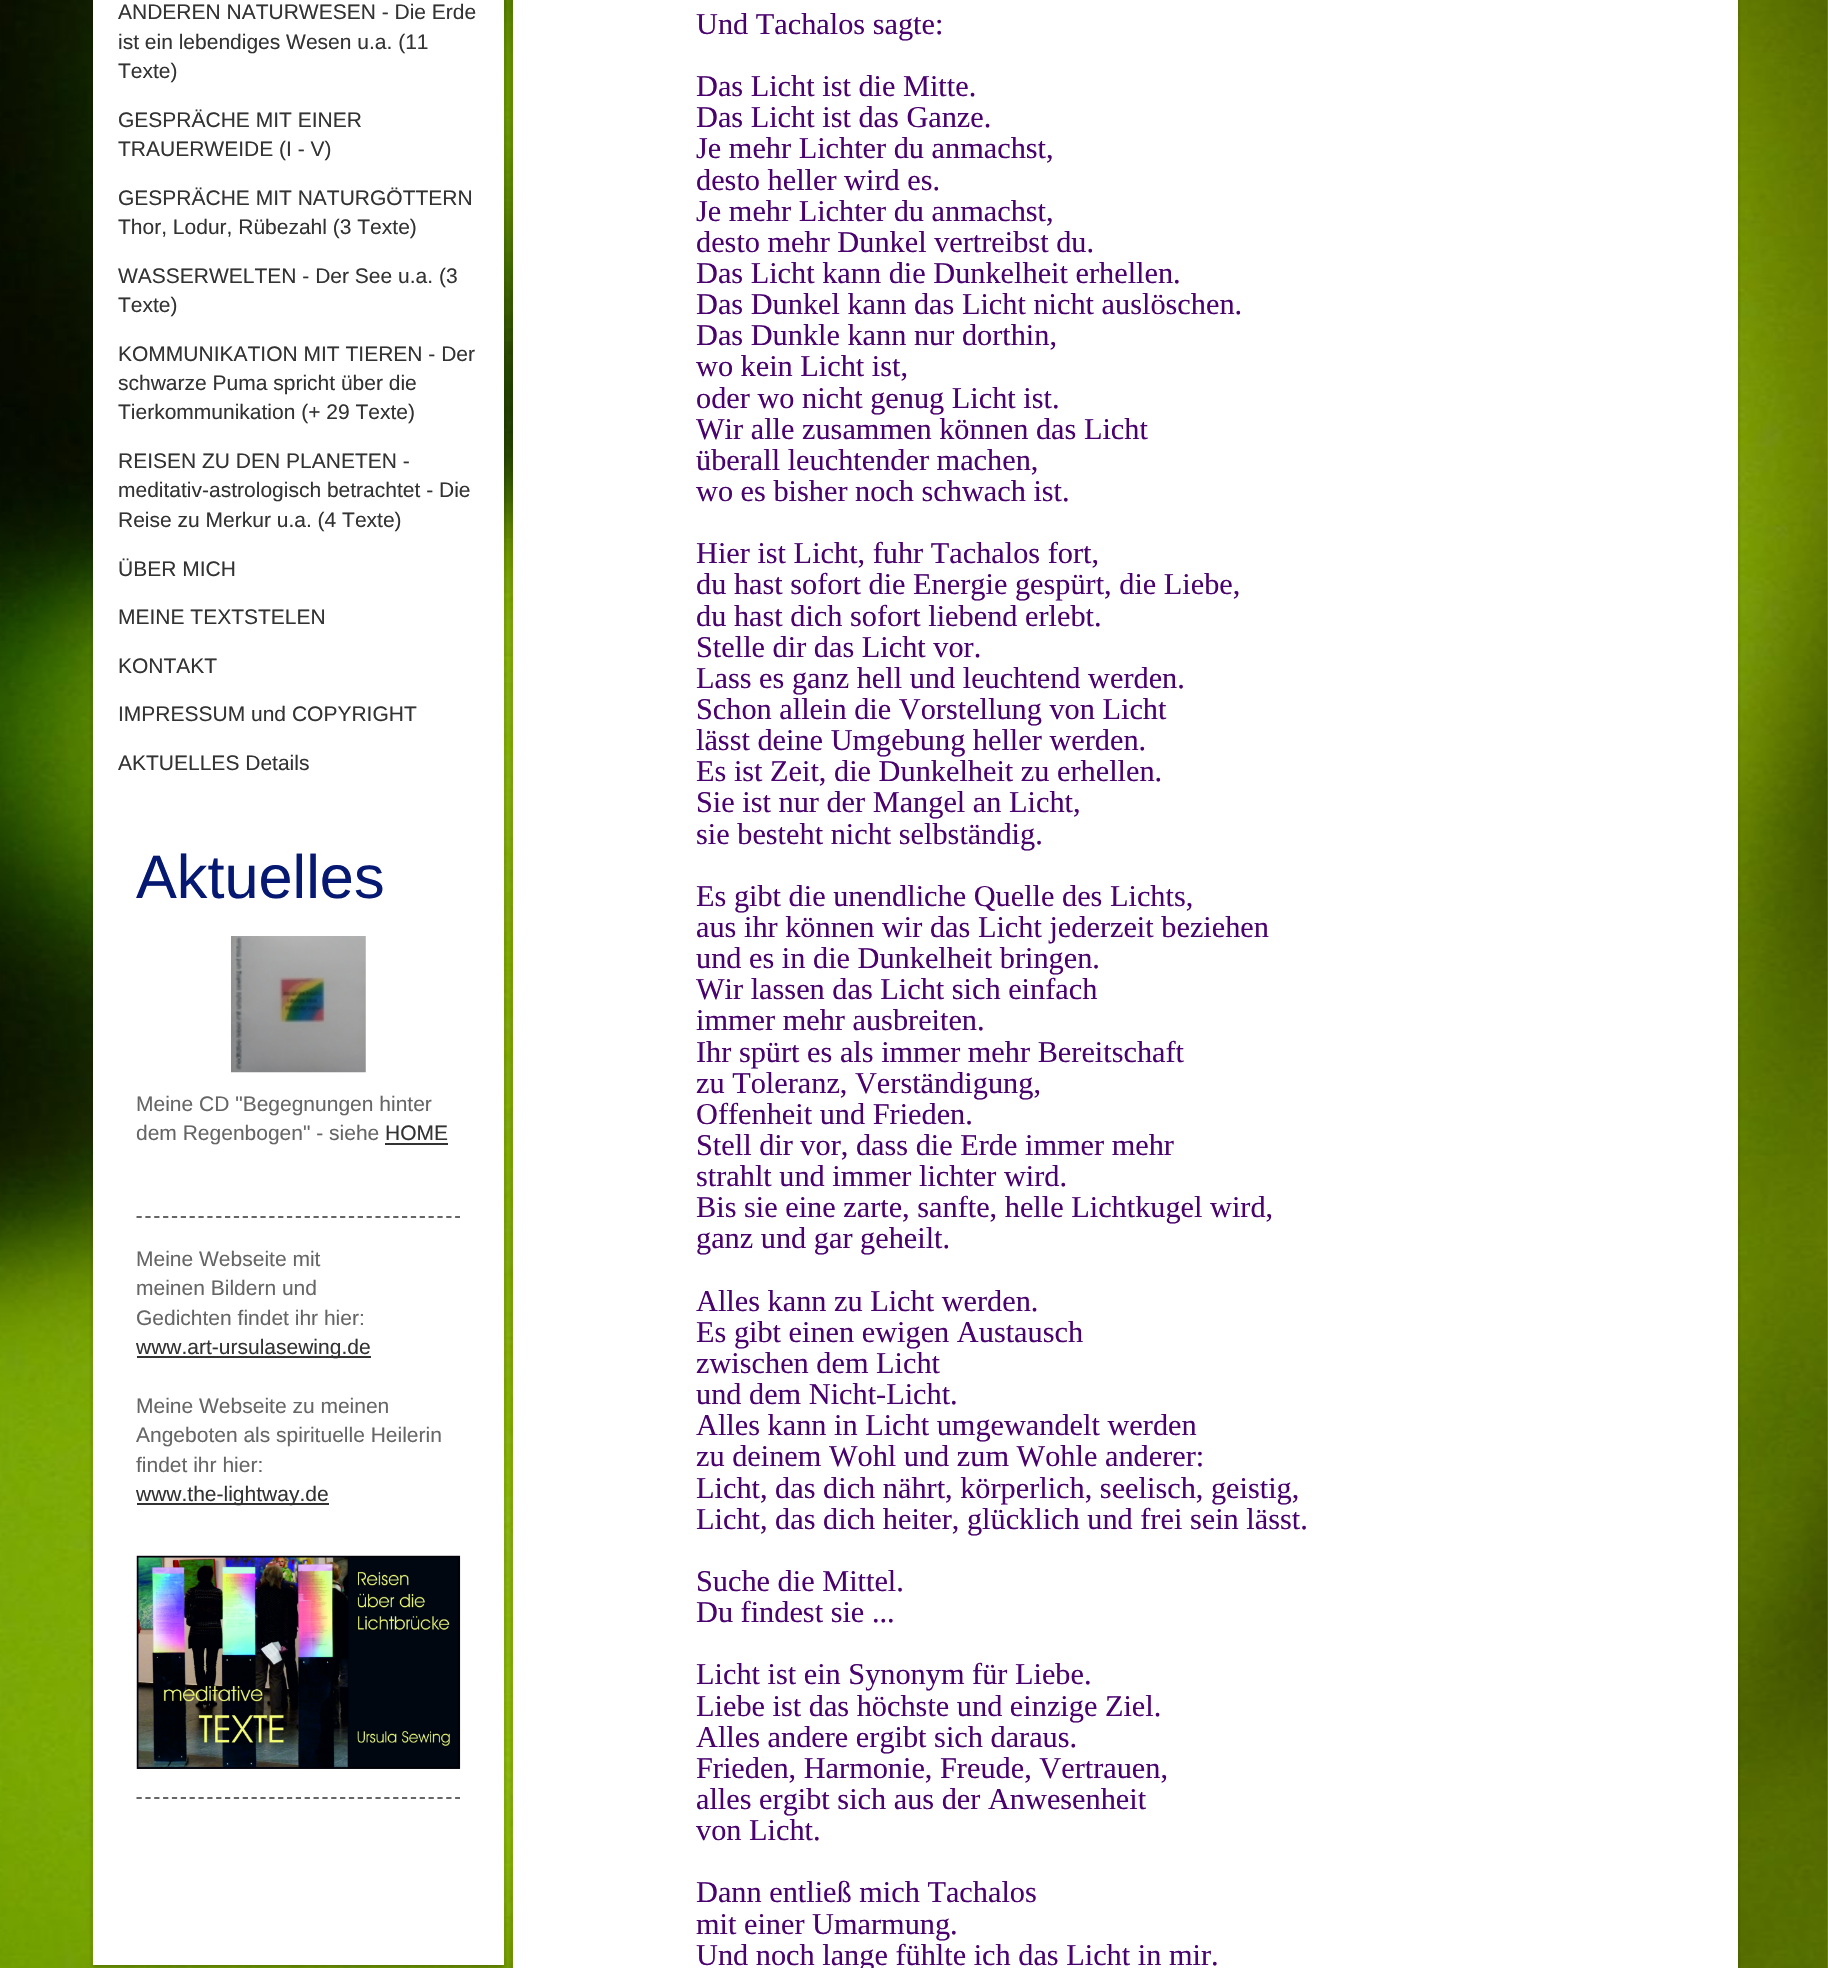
static SkFont makeFont(const char* family, int weight, float size, bool italic = false) {
  SkFontStyle style(weight, SkFontStyle::kNormal_Width,
    italic ? SkFontStyle::kItalic_Slant : SkFontStyle::kUpright_Slant);
  SkFont result(fontMgr->matchFamilyStyle(family, style), size);
  result.setSubpixel(true);
  return result;
}

static void text(SkCanvas* c, const char* s, float x, float y, const SkFont& font, SkColor color) {
  SkPaint ink(SkColor4f::FromColor(color));
  ink.setAntiAlias(true);
  c->drawString(s, x, y, font, ink);
}

static void box(SkCanvas* c, float l, float t, float r, float b, SkColor color) {
  SkPaint ink(SkColor4f::FromColor(color));
  ink.setAntiAlias(true);
  c->drawRect(SkRect::MakeLTRB(l, t, r, b), ink);
}

static void picture(SkCanvas* c, const char* path, float l, float t, float r, float b) {
  auto image = SkImages::DeferredFromEncodedData(SkData::MakeFromFileName(path));
  c->drawImageRect(image, SkRect::MakeLTRB(l, t, r, b), SkSamplingOptions());
}

void draw(SkCanvas* c) {
  SkPaint paint;
  paint.setAntiAlias(true);
  c->clear(0xffffffff);
  picture(c, "img_01.png", 0, 0, 1828, 1968);
  picture(c, "img_02.png", 90, 1965, 507, 1968);
  picture(c, "img_03.png", 89, 0, 507, 1965);
  box(c, 93, 0, 504, 1965, 0xffffffff);
  SkFont face1 = makeFont("Liberation Sans", 400, 21);
  text(c, "ANDEREN NATURWESEN - Die Erde", 118, 19, face1, 0xff333333);
  text(c, "ist ein lebendiges Wesen u.a. (11", 118, 49, face1, 0xff333333);
  text(c, "Texte)", 118, 78, face1, 0xff333333);
  text(c, "GESPRÄCHE MIT EINER", 118, 127, face1, 0xff333333);
  text(c, "TRAUERWEIDE (I - V)", 118, 156, face1, 0xff333333);
  text(c, "GESPRÄCHE MIT NATURGÖTTERN", 118, 205, face1, 0xff333333);
  text(c, "Thor, Lodur, Rübezahl (3 Texte)", 118, 234, face1, 0xff333333);
  text(c, "WASSERWELTEN - Der See u.a. (3", 118, 283, face1, 0xff333333);
  text(c, "Texte)", 118, 312, face1, 0xff333333);
  text(c, "KOMMUNIKATION MIT TIEREN - Der", 118, 361, face1, 0xff333333);
  text(c, "schwarze Puma spricht über die", 118, 390, face1, 0xff333333);
  text(c, "Tierkommunikation (+ 29 Texte)", 118, 419, face1, 0xff333333);
  text(c, "REISEN ZU DEN PLANETEN -", 118, 468, face1, 0xff333333);
  text(c, "meditativ-astrologisch betrachtet - Die", 118, 497, face1, 0xff333333);
  text(c, "Reise zu Merkur u.a. (4 Texte)", 118, 527, face1, 0xff333333);
  text(c, "ÜBER MICH", 118, 576, face1, 0xff333333);
  text(c, "MEINE TEXTSTELEN", 118, 624, face1, 0xff333333);
  text(c, "KONTAKT", 118, 673, face1, 0xff333333);
  text(c, "IMPRESSUM und COPYRIGHT", 118, 721, face1, 0xff333333);
  text(c, "AKTUELLES Details", 118, 770, face1, 0xff333333);
  SkFont face2 = makeFont("Liberation Sans", 400, 61.25f);
  text(c, "Aktuelles", 136, 898, face2, 0xff051972);
  picture(c, "img_04.png", 231, 936, 366, 1073);
  text(c, "Meine CD \"Begegnungen hinter", 136, 1111, face1, 0xff666666);
  text(c, "dem Regenbogen\" - siehe", 136, 1140, face1, 0xff666666);
  text(c, "HOME", 385, 1140, face1, 0xff333333);
  box(c, 385, 1143, 448, 1145, 0xff333333);
  paint.setStyle(SkPaint::kStroke_Style);
  paint.setStrokeWidth(1.8f);
  paint.setColor(0xff666666);
  paint.setPathEffect(SkDashPathEffect::Make({{5.25f, 3.6f}}, 0));
  c->drawPath(SkPathBuilder().moveTo(136.5f, 1217).lineTo(460, 1217).detach(), paint);
  paint.setPathEffect(nullptr);
  text(c, "Meine Webseite mit", 136, 1266, face1, 0xff666666);
  text(c, "meinen Bildern und", 136, 1295, face1, 0xff666666);
  text(c, "Gedichten findet ihr hier:", 136, 1325, face1, 0xff666666);
  box(c, 137, 1356, 371, 1358, 0xff333333);
  text(c, "www.art-ursulasewing.de", 136, 1354, face1, 0xff333333);
  text(c, "Meine Webseite zu meinen", 136, 1413, face1, 0xff666666);
  text(c, "Angeboten als spirituelle Heilerin", 136, 1442, face1, 0xff666666);
  text(c, "findet ihr hier:", 136, 1472, face1, 0xff666666);
  box(c, 137, 1503, 329, 1505, 0xff333333);
  text(c, "www.the-lightway.de", 136, 1501, face1, 0xff333333);
  picture(c, "img_05.png", 136, 1555, 461, 1769);
  paint.setPathEffect(SkDashPathEffect::Make({{5.25f, 3.6f}}, 0));
  c->drawPath(SkPathBuilder().moveTo(136.5f, 1798).lineTo(460, 1798).detach(), paint);
  paint.setPathEffect(nullptr);
  picture(c, "img_06.png", 509, 0, 1741, 1968);
  box(c, 513, 0, 1738, 1968, 0xffffffff);
  SkFont face3 = makeFont("Liberation Serif", 400, 30.3f);
  text(c, "Und Tachalos sagte:", 696, 34, face3, 0xff4a026e);
  text(c, "Das Licht ist die Mitte.", 696, 96, face3, 0xff4a026e);
  text(c, "Das Licht ist das Ganze.", 696, 127, face3, 0xff4a026e);
  text(c, "Je mehr Lichter du anmachst,", 696, 158, face3, 0xff4a026e);
  text(c, "desto heller wird es.", 696, 190, face3, 0xff4a026e);
  text(c, "Je mehr Lichter du anmachst,", 696, 221, face3, 0xff4a026e);
  text(c, "desto mehr Dunkel vertreibst du.", 696, 252, face3, 0xff4a026e);
  text(c, "Das Licht kann die Dunkelheit erhellen.", 696, 283, face3, 0xff4a026e);
  text(c, "Das Dunkel kann das Licht nicht auslöschen.", 696, 314, face3, 0xff4a026e);
  text(c, "Das Dunkle kann nur dorthin,", 696, 345, face3, 0xff4a026e);
  text(c, "wo kein Licht ist,", 696, 376, face3, 0xff4a026e);
  text(c, "oder wo nicht genug Licht ist.", 696, 408, face3, 0xff4a026e);
  text(c, "Wir alle zusammen können das Licht", 696, 439, face3, 0xff4a026e);
  text(c, "überall leuchtender machen,", 696, 470, face3, 0xff4a026e);
  text(c, "wo es bisher noch schwach ist.", 696, 501, face3, 0xff4a026e);
  text(c, "Hier ist Licht, fuhr Tachalos fort,", 696, 563, face3, 0xff4a026e);
  text(c, "du hast sofort die Energie gespürt, die Liebe,", 696, 594, face3, 0xff4a026e);
  text(c, "du hast dich sofort liebend erlebt.", 696, 626, face3, 0xff4a026e);
  text(c, "Stelle dir das Licht vor.", 696, 657, face3, 0xff4a026e);
  text(c, "Lass es ganz hell und leuchtend werden.", 696, 688, face3, 0xff4a026e);
  text(c, "Schon allein die Vorstellung von Licht", 696, 719, face3, 0xff4a026e);
  text(c, "lässt deine Umgebung heller werden.", 696, 750, face3, 0xff4a026e);
  text(c, "Es ist Zeit, die Dunkelheit zu erhellen.", 696, 781, face3, 0xff4a026e);
  text(c, "Sie ist nur der Mangel an Licht,", 696, 812, face3, 0xff4a026e);
  text(c, "sie besteht nicht selbständig.", 696, 844, face3, 0xff4a026e);
  text(c, "Es gibt die unendliche Quelle des Lichts,", 696, 906, face3, 0xff4a026e);
  text(c, "aus ihr können wir das Licht jederzeit beziehen", 696, 937, face3, 0xff4a026e);
  text(c, "und es in die Dunkelheit bringen.", 696, 968, face3, 0xff4a026e);
  text(c, "Wir lassen das Licht sich einfach", 696, 999, face3, 0xff4a026e);
  text(c, "immer mehr ausbreiten.", 696, 1030, face3, 0xff4a026e);
  text(c, "Ihr spürt es als immer mehr Bereitschaft", 696, 1062, face3, 0xff4a026e);
  text(c, "zu Toleranz, Verständigung,", 696, 1093, face3, 0xff4a026e);
  text(c, "Offenheit und Frieden.", 696, 1124, face3, 0xff4a026e);
  text(c, "Stell dir vor, dass die Erde immer mehr", 696, 1155, face3, 0xff4a026e);
  text(c, "strahlt und immer lichter wird.", 696, 1186, face3, 0xff4a026e);
  text(c, "Bis sie eine zarte, sanfte, helle Lichtkugel wird,", 696, 1217, face3, 0xff4a026e);
  text(c, "ganz und gar geheilt.", 696, 1248, face3, 0xff4a026e);
  text(c, "Alles kann zu Licht werden.", 696, 1311, face3, 0xff4a026e);
  text(c, "Es gibt einen ewigen Austausch", 696, 1342, face3, 0xff4a026e);
  text(c, "zwischen dem Licht", 696, 1373, face3, 0xff4a026e);
  text(c, "und dem Nicht-Licht.", 696, 1404, face3, 0xff4a026e);
  text(c, "Alles kann in Licht umgewandelt werden", 696, 1435, face3, 0xff4a026e);
  text(c, "zu deinem Wohl und zum Wohle anderer:", 696, 1466, face3, 0xff4a026e);
  text(c, "Licht, das dich nährt, körperlich, seelisch, geistig,", 696, 1498, face3, 0xff4a026e);
  text(c, "Licht, das dich heiter, glücklich und frei sein lässt.", 696, 1529, face3, 0xff4a026e);
  text(c, "Suche die Mittel.", 696, 1591, face3, 0xff4a026e);
  text(c, "Du findest sie ...", 696, 1622, face3, 0xff4a026e);
  text(c, "Licht ist ein Synonym für Liebe.", 696, 1684, face3, 0xff4a026e);
  text(c, "Liebe ist das höchste und einzige Ziel.", 696, 1716, face3, 0xff4a026e);
  text(c, "Alles andere ergibt sich daraus.", 696, 1747, face3, 0xff4a026e);
  text(c, "Frieden, Harmonie, Freude, Vertrauen,", 696, 1778, face3, 0xff4a026e);
  text(c, "alles ergibt sich aus der Anwesenheit", 696, 1809, face3, 0xff4a026e);
  text(c, "von Licht.", 696, 1840, face3, 0xff4a026e);
  text(c, "Dann entließ mich Tachalos", 696, 1902, face3, 0xff4a026e);
  text(c, "mit einer Umarmung.", 696, 1934, face3, 0xff4a026e);
  text(c, "Und noch lange fühlte ich das Licht in mir.", 696, 1965, face3, 0xff4a026e);
}
